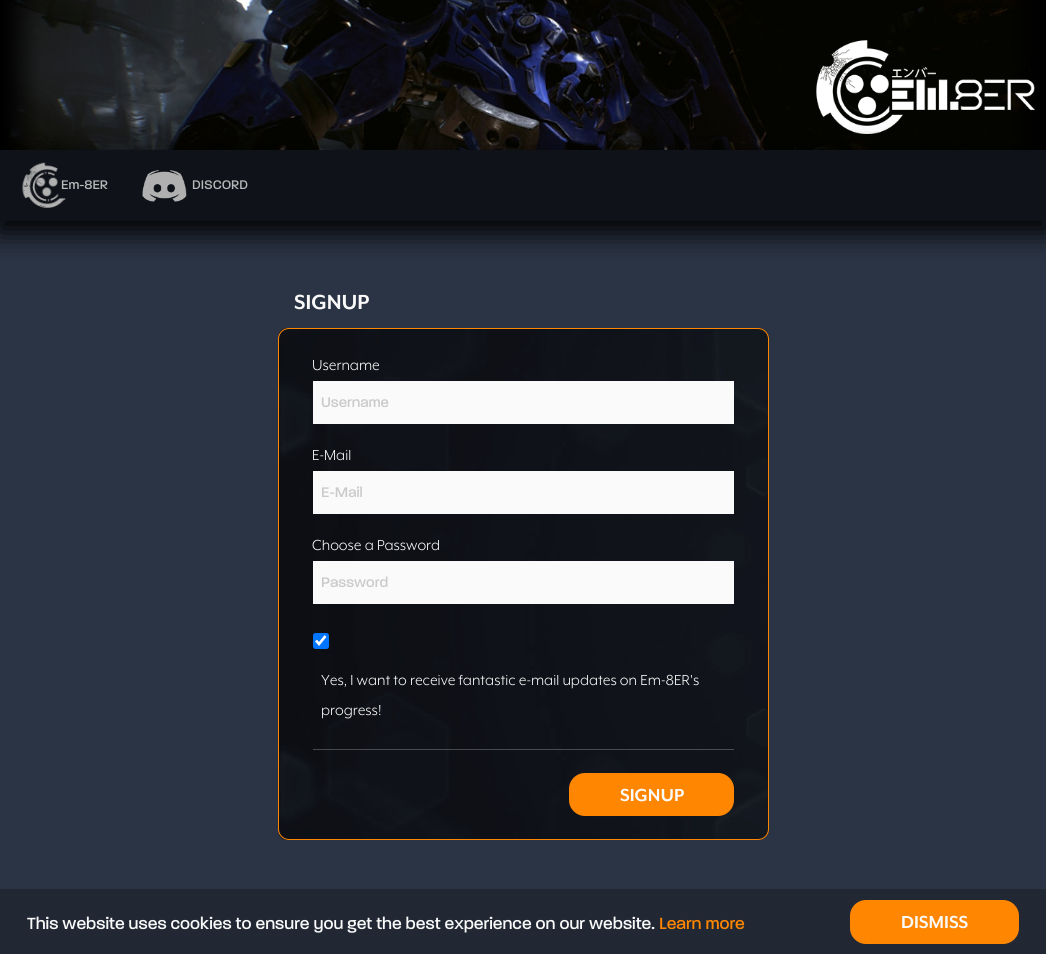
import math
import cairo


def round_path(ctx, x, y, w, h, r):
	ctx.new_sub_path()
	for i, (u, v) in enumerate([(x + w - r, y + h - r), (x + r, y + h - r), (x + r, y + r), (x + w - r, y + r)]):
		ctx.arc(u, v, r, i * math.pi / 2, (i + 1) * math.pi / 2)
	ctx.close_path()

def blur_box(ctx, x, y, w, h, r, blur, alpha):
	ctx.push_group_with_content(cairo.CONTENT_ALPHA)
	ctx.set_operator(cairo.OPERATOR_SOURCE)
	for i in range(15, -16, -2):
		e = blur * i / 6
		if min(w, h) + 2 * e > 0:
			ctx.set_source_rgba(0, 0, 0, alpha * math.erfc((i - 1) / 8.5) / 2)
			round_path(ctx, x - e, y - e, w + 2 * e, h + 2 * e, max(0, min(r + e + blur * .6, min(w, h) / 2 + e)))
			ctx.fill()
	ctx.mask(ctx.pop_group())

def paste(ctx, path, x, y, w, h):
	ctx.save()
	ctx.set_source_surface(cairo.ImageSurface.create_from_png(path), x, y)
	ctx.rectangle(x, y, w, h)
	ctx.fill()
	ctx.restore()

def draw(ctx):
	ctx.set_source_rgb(0.169, 0.204, 0.267)
	ctx.paint()
	paste(ctx, 'media/1.png', 0, 0, 1046, 150)
	paste(ctx, 'media/2.png', 816, 40, 219, 94)
	ctx.set_source_rgb(0, 0, 0)
	blur_box(ctx, -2, 156, 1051, 77, 0, 13.5, 1)
	ctx.set_source_rgb(0.059, 0.071, 0.094)
	ctx.rectangle(0, 150, 1046, 71)
	ctx.fill()
	paste(ctx, 'media/3.png', 22, 162, 44, 46)
	ctx.select_font_face('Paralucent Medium')
	ctx.set_font_size(13.5)
	ctx.set_source_rgb(0.722, 0.725, 0.733)
	ctx.move_to(61, 189)
	ctx.show_text('Em-8ER')
	paste(ctx, 'media/4.png', 142, 170, 45, 32)
	ctx.move_to(192, 189)
	ctx.show_text('DISCORD')
	ctx.select_font_face('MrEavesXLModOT', cairo.FONT_SLANT_NORMAL, cairo.FONT_WEIGHT_BOLD)
	ctx.set_font_size(23.5)
	ctx.set_source_rgb(0.98, 0.98, 0.98)
	ctx.move_to(294, 309)
	ctx.show_text('SIGNUP')
	paste(ctx, 'media/5.png', 278, 328, 491, 512)
	round_path(ctx, 278.5, 328.5, 490, 511, 10.5)
	ctx.set_source_rgb(1, 0.525, 0)
	ctx.set_line_width(1)
	ctx.stroke()
	ctx.select_font_face('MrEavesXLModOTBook')
	ctx.set_font_size(16.7)
	ctx.set_source_rgb(0.98, 0.98, 0.98)
	ctx.move_to(312, 370)
	ctx.show_text('Username')
	ctx.rectangle(313, 381, 421, 43)
	ctx.fill()
	ctx.select_font_face('Paralucent Medium')
	ctx.set_font_size(15)
	ctx.set_source_rgb(0.792, 0.792, 0.792)
	ctx.move_to(321, 407)
	ctx.show_text('Username')
	ctx.select_font_face('MrEavesXLModOTBook')
	ctx.set_font_size(16.7)
	ctx.set_source_rgb(0.98, 0.98, 0.98)
	ctx.move_to(312, 460)
	ctx.show_text('E-Mail')
	ctx.rectangle(313, 471, 421, 43)
	ctx.fill()
	ctx.select_font_face('Paralucent Medium')
	ctx.set_font_size(15)
	ctx.set_source_rgb(0.792, 0.792, 0.792)
	ctx.move_to(321, 497)
	ctx.show_text('E-Mail')
	ctx.select_font_face('MrEavesXLModOTBook')
	ctx.set_font_size(16.7)
	ctx.set_source_rgb(0.98, 0.98, 0.98)
	ctx.move_to(312, 550)
	ctx.show_text('Choose a Password')
	ctx.rectangle(313, 561, 421, 43)
	ctx.fill()
	ctx.select_font_face('Paralucent Medium')
	ctx.set_font_size(15)
	ctx.set_source_rgb(0.792, 0.792, 0.792)
	ctx.move_to(321, 587)
	ctx.show_text('Password')
	ctx.set_source_rgb(0, 0.459, 1)
	round_path(ctx, 313, 633, 16, 16, 2.5)
	ctx.fill()
	ctx.new_path()
	ctx.move_to(316, 640.5)
	ctx.line_to(319, 644)
	ctx.line_to(325.5, 636)
	ctx.set_source_rgb(1, 1, 1)
	ctx.set_line_width(2.6)
	ctx.stroke()
	ctx.select_font_face('MrEavesXLModOTBook')
	ctx.set_font_size(16.7)
	ctx.set_source_rgb(0.98, 0.98, 0.98)
	ctx.move_to(321, 685)
	ctx.show_text('Yes, I want to receive fantastic e-mail updates on Em-8ER\'s')
	ctx.move_to(321, 715)
	ctx.show_text('progress!')
	ctx.set_source_rgba(0.98, 0.98, 0.98, 0.25)
	ctx.rectangle(313, 749, 421, 1)
	ctx.fill()
	ctx.set_source_rgb(1, 0.525, 0)
	round_path(ctx, 569, 773, 165, 43, 16)
	ctx.fill()
	ctx.select_font_face('MrEavesXLModOT', cairo.FONT_SLANT_NORMAL, cairo.FONT_WEIGHT_BOLD)
	ctx.set_font_size(20)
	ctx.set_source_rgb(0.98, 0.98, 0.98)
	ctx.move_to(620, 801)
	ctx.show_text('SIGNUP')
	ctx.set_source_rgb(0.129, 0.157, 0.204)
	ctx.rectangle(0, 889, 1046, 65)
	ctx.fill()
	ctx.select_font_face('Paralucent Medium')
	ctx.set_font_size(17.5)
	ctx.set_source_rgb(0.98, 0.98, 0.98)
	ctx.move_to(27, 929)
	ctx.show_text('This website uses cookies to ensure you get the best experience on our website.')
	ctx.set_source_rgb(1, 0.525, 0)
	ctx.move_to(659, 929)
	ctx.show_text('Learn more')
	round_path(ctx, 850, 900, 169, 44, 16)
	ctx.fill()
	ctx.select_font_face('MrEavesXLModOT', cairo.FONT_SLANT_NORMAL, cairo.FONT_WEIGHT_BOLD)
	ctx.set_font_size(20)
	ctx.set_source_rgb(0.98, 0.98, 0.98)
	ctx.move_to(901, 928)
	ctx.show_text('DISMISS')


surface = cairo.ImageSurface(cairo.FORMAT_RGB24, 1046, 954)
ctx = cairo.Context(surface)
options = cairo.FontOptions()
options.set_hint_metrics(cairo.HINT_METRICS_OFF)
options.set_hint_style(cairo.HINT_STYLE_NONE)
ctx.set_font_options(options)
ctx.set_miter_limit(4)
draw(ctx)
surface.write_to_png('image.png')
